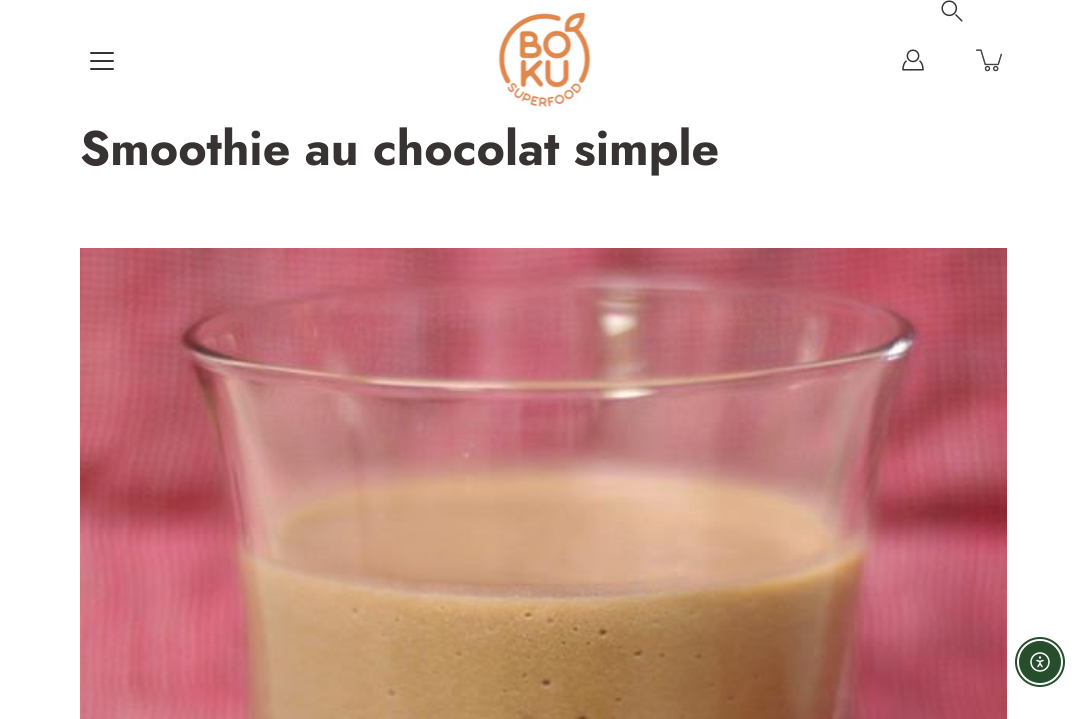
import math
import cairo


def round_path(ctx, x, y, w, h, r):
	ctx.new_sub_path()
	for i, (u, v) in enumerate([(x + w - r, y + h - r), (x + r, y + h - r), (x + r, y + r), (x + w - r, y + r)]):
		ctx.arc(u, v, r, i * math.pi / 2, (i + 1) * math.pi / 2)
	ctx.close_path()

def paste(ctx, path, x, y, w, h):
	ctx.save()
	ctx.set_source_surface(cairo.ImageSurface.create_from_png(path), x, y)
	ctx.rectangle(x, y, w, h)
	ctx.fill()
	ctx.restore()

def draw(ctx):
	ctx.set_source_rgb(1, 1, 1)
	ctx.paint()
	paste(ctx, 'media/1.png', 941, 0, 22, 22)
	ctx.set_source_rgb(0.22, 0.2, 0.2)
	round_path(ctx, 90, 60, 24, 2, 1)
	ctx.fill()
	round_path(ctx, 90, 52, 24, 2, 1)
	ctx.fill()
	round_path(ctx, 90, 68, 24, 2, 1)
	ctx.fill()
	paste(ctx, 'media/2.png', 902, 49, 22, 22)
	paste(ctx, 'media/3.png', 976, 49, 26, 23)
	paste(ctx, 'media/4.png', 495, 7, 96, 103)
	ctx.select_font_face('Jost', cairo.FONT_SLANT_NORMAL, cairo.FONT_WEIGHT_BOLD)
	ctx.set_font_size(48.25)
	ctx.move_to(80, 165)
	ctx.show_text('Smoothie au chocolat simple')
	paste(ctx, 'media/5.png', 80, 248, 927, 471)
	ctx.arc(1040, 662, 24, 0, 2 * math.pi)
	ctx.set_source_rgb(0.149, 0.306, 0.176)
	ctx.stroke()
	ctx.arc(1040, 662, 20.5, 0, 2 * math.pi)
	ctx.fill_preserve()
	ctx.set_line_width(1)
	ctx.stroke()
	paste(ctx, 'media/6.png', 1030, 652, 20, 20)


surface = cairo.ImageSurface(cairo.FORMAT_RGB24, 1087, 719)
ctx = cairo.Context(surface)
options = cairo.FontOptions()
options.set_hint_metrics(cairo.HINT_METRICS_OFF)
options.set_hint_style(cairo.HINT_STYLE_NONE)
ctx.set_font_options(options)
ctx.set_miter_limit(4)
draw(ctx)
surface.write_to_png('image.png')
